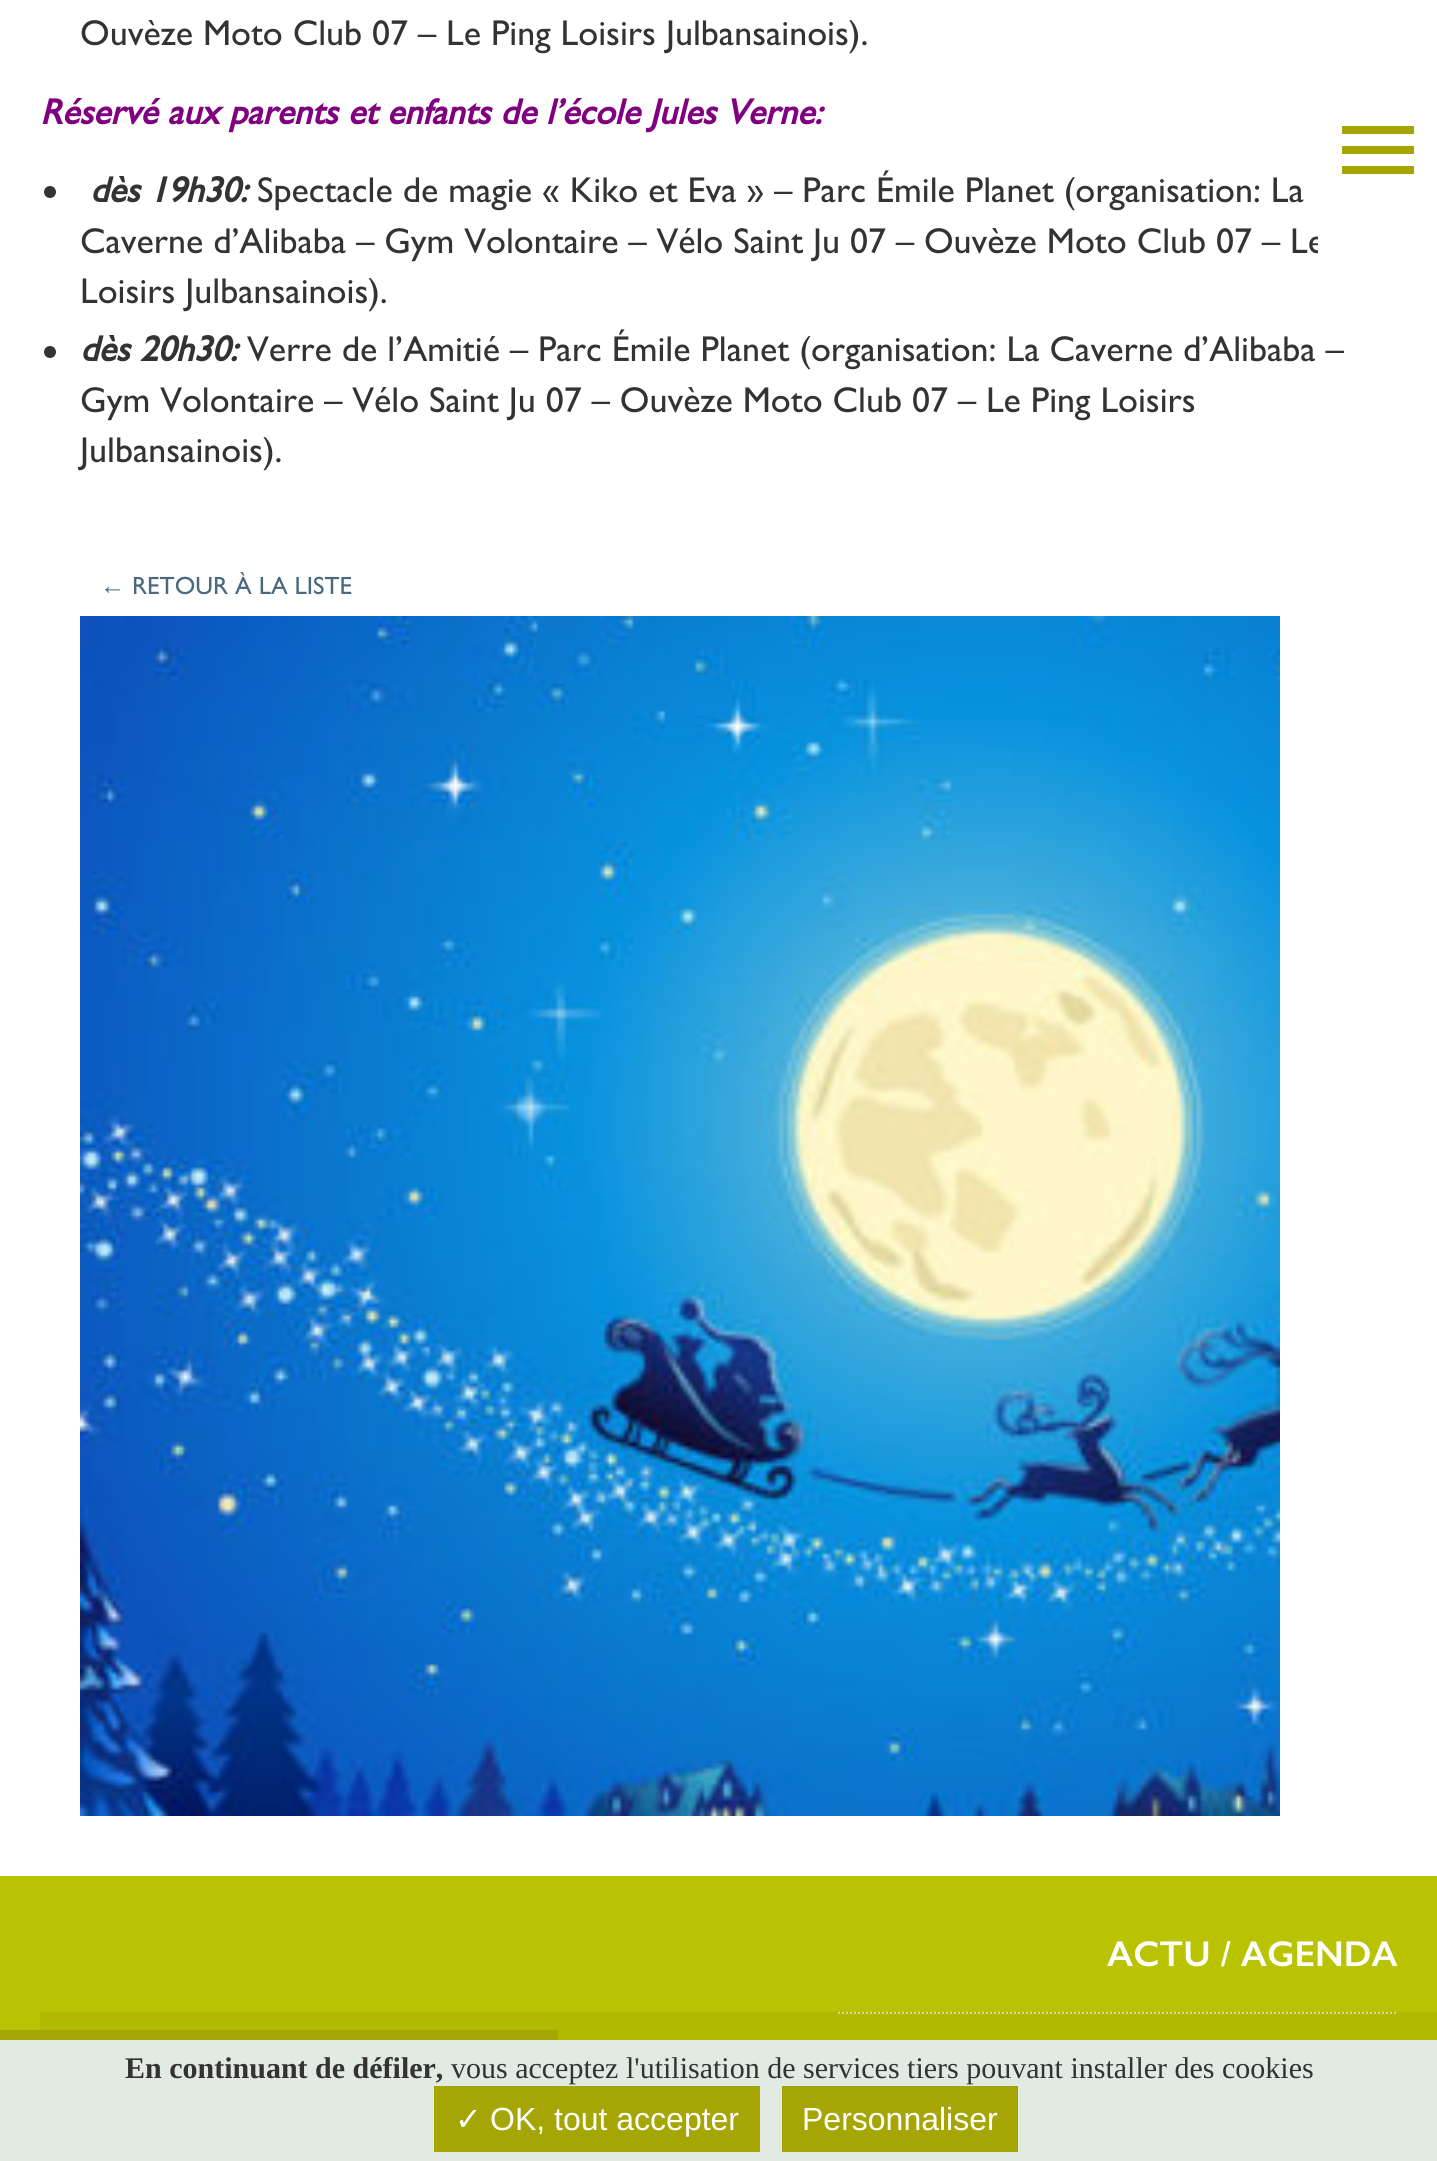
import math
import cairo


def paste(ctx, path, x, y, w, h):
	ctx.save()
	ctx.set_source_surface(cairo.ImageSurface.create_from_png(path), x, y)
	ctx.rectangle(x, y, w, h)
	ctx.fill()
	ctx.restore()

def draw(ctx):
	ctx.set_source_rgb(1, 1, 1)
	ctx.paint()
	ctx.select_font_face('Gill Sans')
	ctx.set_font_size(36)
	ctx.set_source_rgb(0.2, 0.2, 0.2)
	ctx.move_to(80, 45)
	ctx.show_text('Ouvèze Moto Club 07 – Le Ping Loisirs Julbansainois).')
	ctx.select_font_face('Gill Sans', cairo.FONT_SLANT_ITALIC, cairo.FONT_WEIGHT_BOLD)
	ctx.set_source_rgb(0.502, 0, 0.502)
	ctx.move_to(40, 124)
	ctx.show_text('Réservé aux parents et enfants de l’école Jules Verne:')
	ctx.set_source_rgb(0.2, 0.2, 0.2)
	ctx.new_path()
	ctx.arc(50, 192, 6, 0, 2 * math.pi)
	ctx.fill()
	ctx.move_to(90, 202)
	ctx.show_text('dès 19h30:')
	ctx.select_font_face('Gill Sans')
	for x, y, s in [
		(257, 202, 'Spectacle de magie « Kiko et Eva » – Parc Émile Planet (organisation: La'),
		(80, 253, 'Caverne d’Alibaba – Gym Volontaire – Vélo Saint Ju 07 – Ouvèze Moto Club 07 – Le'),
		(80, 303, 'Loisirs Julbansainois).'),
	]:
		ctx.move_to(x, y)
		ctx.show_text(s)
	ctx.new_path()
	ctx.arc(50, 352, 6, 0, 2 * math.pi)
	ctx.fill()
	ctx.select_font_face('Gill Sans', cairo.FONT_SLANT_ITALIC, cairo.FONT_WEIGHT_BOLD)
	ctx.move_to(80, 361)
	ctx.show_text('dès 20h30:')
	ctx.select_font_face('Gill Sans')
	for x, y, s in [
		(247, 361, 'Verre de l’Amitié – Parc Émile Planet (organisation: La Caverne d’Alibaba –'),
		(80, 412, 'Gym Volontaire – Vélo Saint Ju 07 – Ouvèze Moto Club 07 – Le Ping Loisirs'),
		(80, 462, 'Julbansainois).'),
	]:
		ctx.move_to(x, y)
		ctx.show_text(s)
	ctx.select_font_face('Liberation Sans')
	ctx.set_font_size(25)
	ctx.set_source_rgb(0.294, 0.412, 0.486)
	ctx.move_to(100, 594)
	ctx.show_text('←')
	ctx.select_font_face('Gill Sans')
	ctx.move_to(132, 594)
	ctx.show_text('RETOUR À LA LISTE')
	paste(ctx, 'media/1.png', 80, 616, 1200, 1200)
	ctx.set_source_rgb(0.729, 0.765, 0.008)
	ctx.rectangle(0, 1876, 1437, 164)
	ctx.fill()
	ctx.select_font_face('Gill Sans SemiBold')
	ctx.set_font_size(36)
	ctx.set_source_rgb(1, 1, 1)
	ctx.move_to(1107, 1966)
	ctx.show_text('ACTU / AGENDA')
	ctx.new_path()
	ctx.move_to(838, 2013)
	ctx.line_to(1398, 2013)
	ctx.set_source_rgb(0.89, 0.906, 0.604)
	ctx.set_dash([2, 2])
	ctx.stroke()
	ctx.set_source_rgba(0, 0, 0, 0.05)
	ctx.rectangle(40, 2012, 1397, 28)
	ctx.fill()
	ctx.set_source_rgb(1, 1, 1)
	ctx.rectangle(1318, 236, 6, 18)
	ctx.fill()
	ctx.set_source_rgb(0.647, 0.647, 0.016)
	ctx.rectangle(1342, 146, 72, 8)
	ctx.rectangle(1342, 126, 72, 8)
	ctx.rectangle(1342, 166, 72, 8)
	ctx.rectangle(0, 2030, 558, 10)
	ctx.fill()
	ctx.set_source_rgb(0.882, 0.918, 0.882)
	ctx.rectangle(0, 2040, 1437, 121)
	ctx.fill()
	ctx.select_font_face('Liberation Serif', cairo.FONT_SLANT_NORMAL, cairo.FONT_WEIGHT_BOLD)
	ctx.set_font_size(30)
	ctx.set_source_rgb(0.2, 0.2, 0.2)
	ctx.move_to(125, 2078)
	ctx.show_text('En continuant de défiler,')
	ctx.select_font_face('Liberation Serif')
	ctx.move_to(451, 2078)
	ctx.show_text('vous acceptez l\'utilisation de services tiers pouvant installer des cookies')
	ctx.set_source_rgb(0.647, 0.647, 0.016)
	ctx.rectangle(434, 2086, 326, 66)
	ctx.fill()
	ctx.select_font_face('DejaVu Sans')
	ctx.set_font_size(32)
	ctx.set_source_rgb(1, 1, 1)
	ctx.move_to(455, 2130)
	ctx.show_text('✓')
	ctx.select_font_face('Liberation Sans')
	ctx.move_to(490, 2130)
	ctx.show_text('OK, tout accepter')
	ctx.set_source_rgb(0.647, 0.647, 0.016)
	ctx.rectangle(782, 2086, 236, 66)
	ctx.fill()
	ctx.set_source_rgb(1, 1, 1)
	ctx.move_to(802, 2130)
	ctx.show_text('Personnaliser')


surface = cairo.ImageSurface(cairo.FORMAT_RGB24, 1437, 2161)
ctx = cairo.Context(surface)
options = cairo.FontOptions()
options.set_hint_metrics(cairo.HINT_METRICS_OFF)
options.set_hint_style(cairo.HINT_STYLE_NONE)
ctx.set_font_options(options)
ctx.set_miter_limit(4)
draw(ctx)
surface.write_to_png('image.png')
